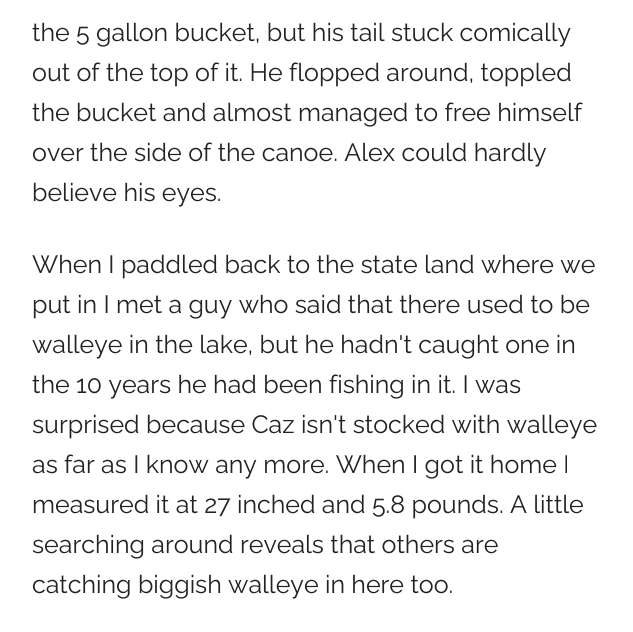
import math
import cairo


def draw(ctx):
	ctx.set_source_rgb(1, 1, 1)
	ctx.paint()
	ctx.select_font_face('Raleway')
	ctx.set_font_size(25)
	ctx.set_source_rgb(0.133, 0.133, 0.133)
	for x, y, s in [
		(32, 41, 'the 5 gallon bucket, but his tail stuck comically'),
		(32, 81, 'out of the top of it. He flopped around, toppled'),
		(32, 121, 'the bucket and almost managed to free himself'),
		(32, 161, 'over the side of the canoe. Alex could hardly'),
		(32, 201, 'believe his eyes.'),
		(32, 273, 'When I paddled back to the state land where we'),
		(32, 313, 'put in I met a guy who said that there used to be'),
		(32, 353, 'walleye in the lake, but he hadn\'t caught one in'),
		(32, 393, 'the 10 years he had been fishing in it. I was'),
		(32, 433, 'surprised because Caz isn\'t stocked with walleye'),
		(32, 473, 'as far as I know any more. When I got it home I'),
		(32, 513, 'measured it at 27 inched and 5.8 pounds. A little'),
		(32, 553, 'searching around reveals that others are'),
		(32, 593, 'catching biggish walleye in here too.'),
	]:
		ctx.move_to(x, y)
		ctx.show_text(s)


surface = cairo.ImageSurface(cairo.FORMAT_RGB24, 633, 632)
ctx = cairo.Context(surface)
options = cairo.FontOptions()
options.set_hint_metrics(cairo.HINT_METRICS_OFF)
options.set_hint_style(cairo.HINT_STYLE_NONE)
ctx.set_font_options(options)
ctx.set_miter_limit(4)
draw(ctx)
surface.write_to_png('image.png')
